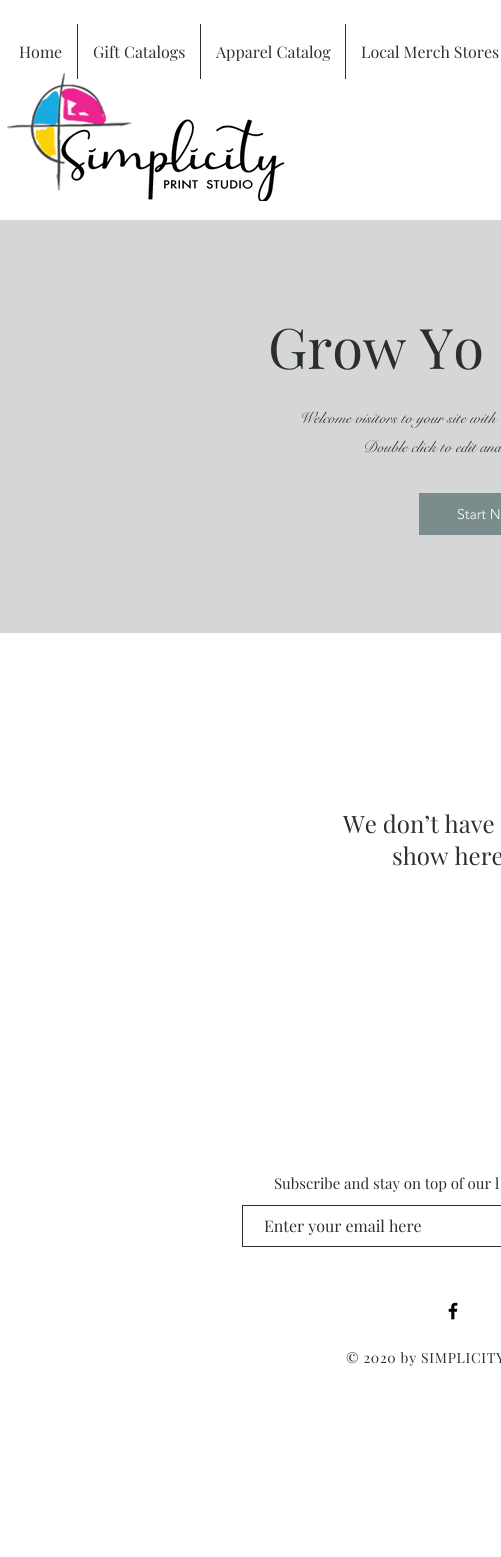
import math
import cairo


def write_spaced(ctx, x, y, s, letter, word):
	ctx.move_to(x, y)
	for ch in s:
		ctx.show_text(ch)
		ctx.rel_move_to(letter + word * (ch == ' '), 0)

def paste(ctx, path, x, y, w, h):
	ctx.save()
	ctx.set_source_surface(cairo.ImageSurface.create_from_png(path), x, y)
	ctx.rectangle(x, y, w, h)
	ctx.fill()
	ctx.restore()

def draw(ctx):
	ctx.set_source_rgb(1, 1, 1)
	ctx.paint()
	ctx.select_font_face('Playfair Display')
	ctx.set_font_size(16)
	ctx.set_source_rgb(0.184, 0.18, 0.18)
	ctx.move_to(19, 58)
	ctx.show_text('Home')
	paste(ctx, 'media/1.png', 7, 73, 278, 128)
	ctx.rectangle(77, 24, 1, 55)
	ctx.fill()
	ctx.move_to(93, 58)
	ctx.show_text('Gift Catalogs')
	ctx.rectangle(200, 24, 1, 55)
	ctx.fill()
	ctx.move_to(216, 58)
	ctx.show_text('Apparel Catalog')
	ctx.rectangle(345, 24, 1, 55)
	ctx.fill()
	ctx.move_to(361, 58)
	ctx.show_text('Local Merch Stores')
	ctx.set_source_rgb(0.839, 0.839, 0.839)
	ctx.rectangle(0, 220, 501, 413)
	ctx.fill()
	ctx.set_font_size(56)
	ctx.set_source_rgb(0.161, 0.184, 0.184)
	ctx.move_to(268, 369)
	ctx.show_text('Grow Yo')
	ctx.select_font_face('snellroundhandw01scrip')
	ctx.set_font_size(16)
	ctx.move_to(299, 423)
	ctx.show_text('Welcome visitors to your site with')
	ctx.move_to(363, 452)
	ctx.show_text('Double click to edit and')
	ctx.set_source_rgb(0.478, 0.549, 0.549)
	ctx.rectangle(419, 493, 82, 42)
	ctx.fill()
	ctx.select_font_face('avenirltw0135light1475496 Light')
	ctx.set_font_size(14)
	ctx.set_source_rgb(1, 1, 1)
	ctx.move_to(457, 519)
	ctx.show_text('Start N')
	ctx.select_font_face('Playfair Display')
	ctx.set_font_size(24)
	ctx.set_source_rgb(0.184, 0.18, 0.18)
	ctx.move_to(343, 833)
	ctx.show_text('We don’t have')
	ctx.move_to(392, 865)
	ctx.show_text('show here')
	ctx.set_font_size(15)
	ctx.set_source_rgb(0.161, 0.184, 0.184)
	ctx.move_to(274, 1189)
	ctx.show_text('Subscribe and stay on top of our l')
	ctx.rectangle(242.5, 1205.5, 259, 41)
	ctx.set_source_rgb(0.184, 0.18, 0.18)
	ctx.set_line_width(1)
	ctx.stroke()
	ctx.set_font_size(16)
	ctx.move_to(264, 1232)
	ctx.show_text('Enter your email here')
	paste(ctx, 'media/2.png', 448, 1302, 10, 18)
	ctx.set_font_size(14)
	ctx.set_source_rgb(0.161, 0.184, 0.184)
	write_spaced(ctx, 346, 1363, '© 2020 by SIMPLICITY', 0.7, 0)


surface = cairo.ImageSurface(cairo.FORMAT_RGB24, 501, 1557)
ctx = cairo.Context(surface)
options = cairo.FontOptions()
options.set_hint_metrics(cairo.HINT_METRICS_OFF)
options.set_hint_style(cairo.HINT_STYLE_NONE)
ctx.set_font_options(options)
ctx.set_miter_limit(4)
draw(ctx)
surface.write_to_png('image.png')
